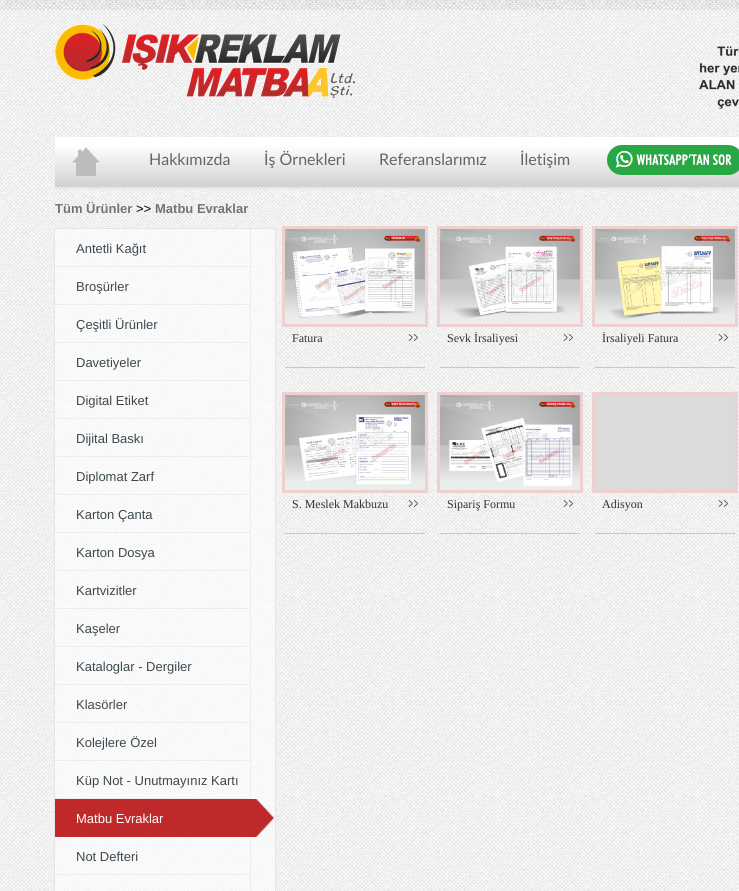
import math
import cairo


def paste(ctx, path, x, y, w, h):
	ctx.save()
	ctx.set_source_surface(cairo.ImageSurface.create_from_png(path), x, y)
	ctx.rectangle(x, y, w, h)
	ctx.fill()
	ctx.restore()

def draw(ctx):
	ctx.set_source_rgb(1, 1, 1)
	ctx.paint()
	paste(ctx, 'media/1.png', 0, 0, 739, 891)
	paste(ctx, 'media/2.png', 55, 23, 300, 75)
	paste(ctx, 'media/3.png', 699, 46, 40, 63)
	paste(ctx, 'media/4.png', 55, 137, 684, 50)
	ctx.set_source_rgb(0.902, 0.902, 0.902)
	ctx.rectangle(55, 187, 684, 2)
	ctx.fill()
	paste(ctx, 'media/5.png', 72, 147, 28, 29)
	ctx.select_font_face('Lato')
	ctx.set_font_size(16)
	ctx.set_source_rgb(0.4, 0.4, 0.4)
	for x, y, s in [
		(149, 165, 'Hakkımızda'),
		(264, 165, 'İş Örnekleri'),
		(379, 165, 'Referanslarımız'),
		(520, 165, 'İletişim'),
	]:
		ctx.move_to(x, y)
		ctx.show_text(s)
	paste(ctx, 'media/6.png', 607, 145, 132, 30)
	ctx.select_font_face('Liberation Sans', cairo.FONT_SLANT_NORMAL, cairo.FONT_WEIGHT_BOLD)
	ctx.set_font_size(13)
	ctx.set_source_rgb(0.459, 0.447, 0.451)
	ctx.move_to(55, 213)
	ctx.show_text('Tüm Ürünler')
	ctx.select_font_face('Liberation Sans')
	ctx.set_source_rgb(0, 0, 0)
	ctx.move_to(136, 213)
	ctx.show_text('>>')
	ctx.select_font_face('Liberation Sans', cairo.FONT_SLANT_NORMAL, cairo.FONT_WEIGHT_BOLD)
	ctx.set_source_rgb(0.459, 0.447, 0.451)
	ctx.move_to(155, 213)
	ctx.show_text('Matbu Evraklar')
	ctx.set_source_rgba(1, 1, 1, 0.6)
	ctx.rectangle(55, 229, 220, 662)
	ctx.fill()
	ctx.set_source_rgb(0.922, 0.922, 0.922)
	ctx.rectangle(55, 266, 195, 1)
	ctx.rectangle(250, 229, 1, 570)
	ctx.rectangle(55, 304, 195, 1)
	ctx.rectangle(55, 342, 195, 1)
	ctx.rectangle(55, 380, 195, 1)
	ctx.rectangle(55, 418, 195, 1)
	ctx.rectangle(55, 456, 195, 1)
	ctx.rectangle(55, 494, 195, 1)
	ctx.rectangle(55, 532, 195, 1)
	ctx.rectangle(55, 570, 195, 1)
	ctx.rectangle(55, 608, 195, 1)
	ctx.rectangle(55, 646, 195, 1)
	ctx.rectangle(55, 684, 195, 1)
	ctx.rectangle(55, 722, 195, 1)
	ctx.rectangle(55, 760, 195, 1)
	ctx.rectangle(55, 798, 195, 1)
	ctx.fill()
	paste(ctx, 'media/7.png', 55, 799, 219, 38)
	ctx.rectangle(55, 874, 195, 1)
	ctx.fill()
	ctx.rectangle(250, 837, 1, 54)
	ctx.fill()
	ctx.rectangle(54.5, 228.5, 221, 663)
	ctx.set_source_rgb(0.898, 0.898, 0.898)
	ctx.set_line_width(1)
	ctx.stroke()
	ctx.select_font_face('Liberation Sans')
	ctx.set_source_rgb(0.239, 0.282, 0.306)
	for x, y, s in [
		(76, 253, 'Antetli Kağıt'),
		(76, 291, 'Broşürler'),
		(76, 329, 'Çeşitli Ürünler'),
		(76, 367, 'Davetiyeler'),
		(76, 405, 'Digital Etiket'),
		(76, 443, 'Dijital Baskı'),
		(76, 481, 'Diplomat Zarf'),
		(76, 519, 'Karton Çanta'),
		(76, 557, 'Karton Dosya'),
		(76, 595, 'Kartvizitler'),
		(76, 633, 'Kaşeler'),
		(76, 671, 'Kataloglar - Dergiler'),
		(76, 709, 'Klasörler'),
		(76, 747, 'Kolejlere Özel'),
		(76, 785, 'Küp Not - Unutmayınız Kartı'),
	]:
		ctx.move_to(x, y)
		ctx.show_text(s)
	ctx.set_source_rgb(1, 1, 1)
	ctx.move_to(76, 823)
	ctx.show_text('Matbu Evraklar')
	ctx.set_source_rgb(0.239, 0.282, 0.306)
	ctx.move_to(76, 861)
	ctx.show_text('Not Defteri')
	ctx.set_source_rgb(0.78, 0.78, 0.78)
	ctx.rectangle(285, 367, 140, 1)
	ctx.fill()
	paste(ctx, 'media/8.png', 285, 229, 140, 95)
	ctx.rectangle(283.5, 227.5, 143, 98)
	ctx.set_source_rgb(0.929, 0.82, 0.82)
	ctx.set_line_width(3)
	ctx.stroke()
	paste(ctx, 'media/9.png', 408, 334, 10, 7)
	ctx.select_font_face('Liberation Serif')
	ctx.set_font_size(12)
	ctx.set_source_rgb(0.2, 0.2, 0.2)
	ctx.move_to(292, 342)
	ctx.show_text('Fatura')
	ctx.set_source_rgb(0.78, 0.78, 0.78)
	ctx.rectangle(440, 367, 140, 1)
	ctx.fill()
	paste(ctx, 'media/10.png', 440, 229, 140, 95)
	ctx.rectangle(438.5, 227.5, 143, 98)
	ctx.set_source_rgb(0.929, 0.82, 0.82)
	ctx.stroke()
	paste(ctx, 'media/11.png', 563, 334, 10, 7)
	ctx.set_source_rgb(0.2, 0.2, 0.2)
	ctx.move_to(447, 342)
	ctx.show_text('Sevk İrsaliyesi')
	ctx.set_source_rgb(0.78, 0.78, 0.78)
	ctx.rectangle(595, 367, 140, 1)
	ctx.fill()
	paste(ctx, 'media/12.png', 595, 229, 140, 95)
	ctx.rectangle(593.5, 227.5, 143, 98)
	ctx.set_source_rgb(0.929, 0.82, 0.82)
	ctx.stroke()
	paste(ctx, 'media/13.png', 718, 334, 10, 7)
	ctx.set_source_rgb(0.2, 0.2, 0.2)
	ctx.move_to(602, 342)
	ctx.show_text('İrsaliyeli Fatura')
	ctx.set_source_rgb(0.78, 0.78, 0.78)
	ctx.rectangle(285, 533, 140, 1)
	ctx.fill()
	paste(ctx, 'media/14.png', 285, 395, 140, 95)
	ctx.rectangle(283.5, 393.5, 143, 98)
	ctx.set_source_rgb(0.929, 0.82, 0.82)
	ctx.stroke()
	paste(ctx, 'media/15.png', 408, 500, 10, 7)
	ctx.set_source_rgb(0.2, 0.2, 0.2)
	ctx.move_to(292, 508)
	ctx.show_text('S. Meslek Makbuzu')
	ctx.set_source_rgb(0.78, 0.78, 0.78)
	ctx.rectangle(440, 533, 140, 1)
	ctx.fill()
	paste(ctx, 'media/16.png', 440, 395, 140, 95)
	ctx.rectangle(438.5, 393.5, 143, 98)
	ctx.set_source_rgb(0.929, 0.82, 0.82)
	ctx.stroke()
	paste(ctx, 'media/17.png', 563, 500, 10, 7)
	ctx.set_source_rgb(0.2, 0.2, 0.2)
	ctx.move_to(447, 508)
	ctx.show_text('Sipariş Formu')
	ctx.set_source_rgb(0.78, 0.78, 0.78)
	ctx.rectangle(595, 533, 140, 1)
	ctx.fill()
	ctx.set_source_rgb(0.863, 0.859, 0.859)
	ctx.rectangle(593.5, 393.5, 143, 98)
	ctx.fill_preserve()
	ctx.set_source_rgb(0.929, 0.82, 0.82)
	ctx.stroke()
	paste(ctx, 'media/18.png', 718, 500, 10, 7)
	ctx.set_source_rgb(0.2, 0.2, 0.2)
	ctx.move_to(602, 508)
	ctx.show_text('Adisyon')


surface = cairo.ImageSurface(cairo.FORMAT_RGB24, 739, 891)
ctx = cairo.Context(surface)
options = cairo.FontOptions()
options.set_hint_metrics(cairo.HINT_METRICS_OFF)
options.set_hint_style(cairo.HINT_STYLE_NONE)
ctx.set_font_options(options)
ctx.set_miter_limit(4)
draw(ctx)
surface.write_to_png('image.png')
